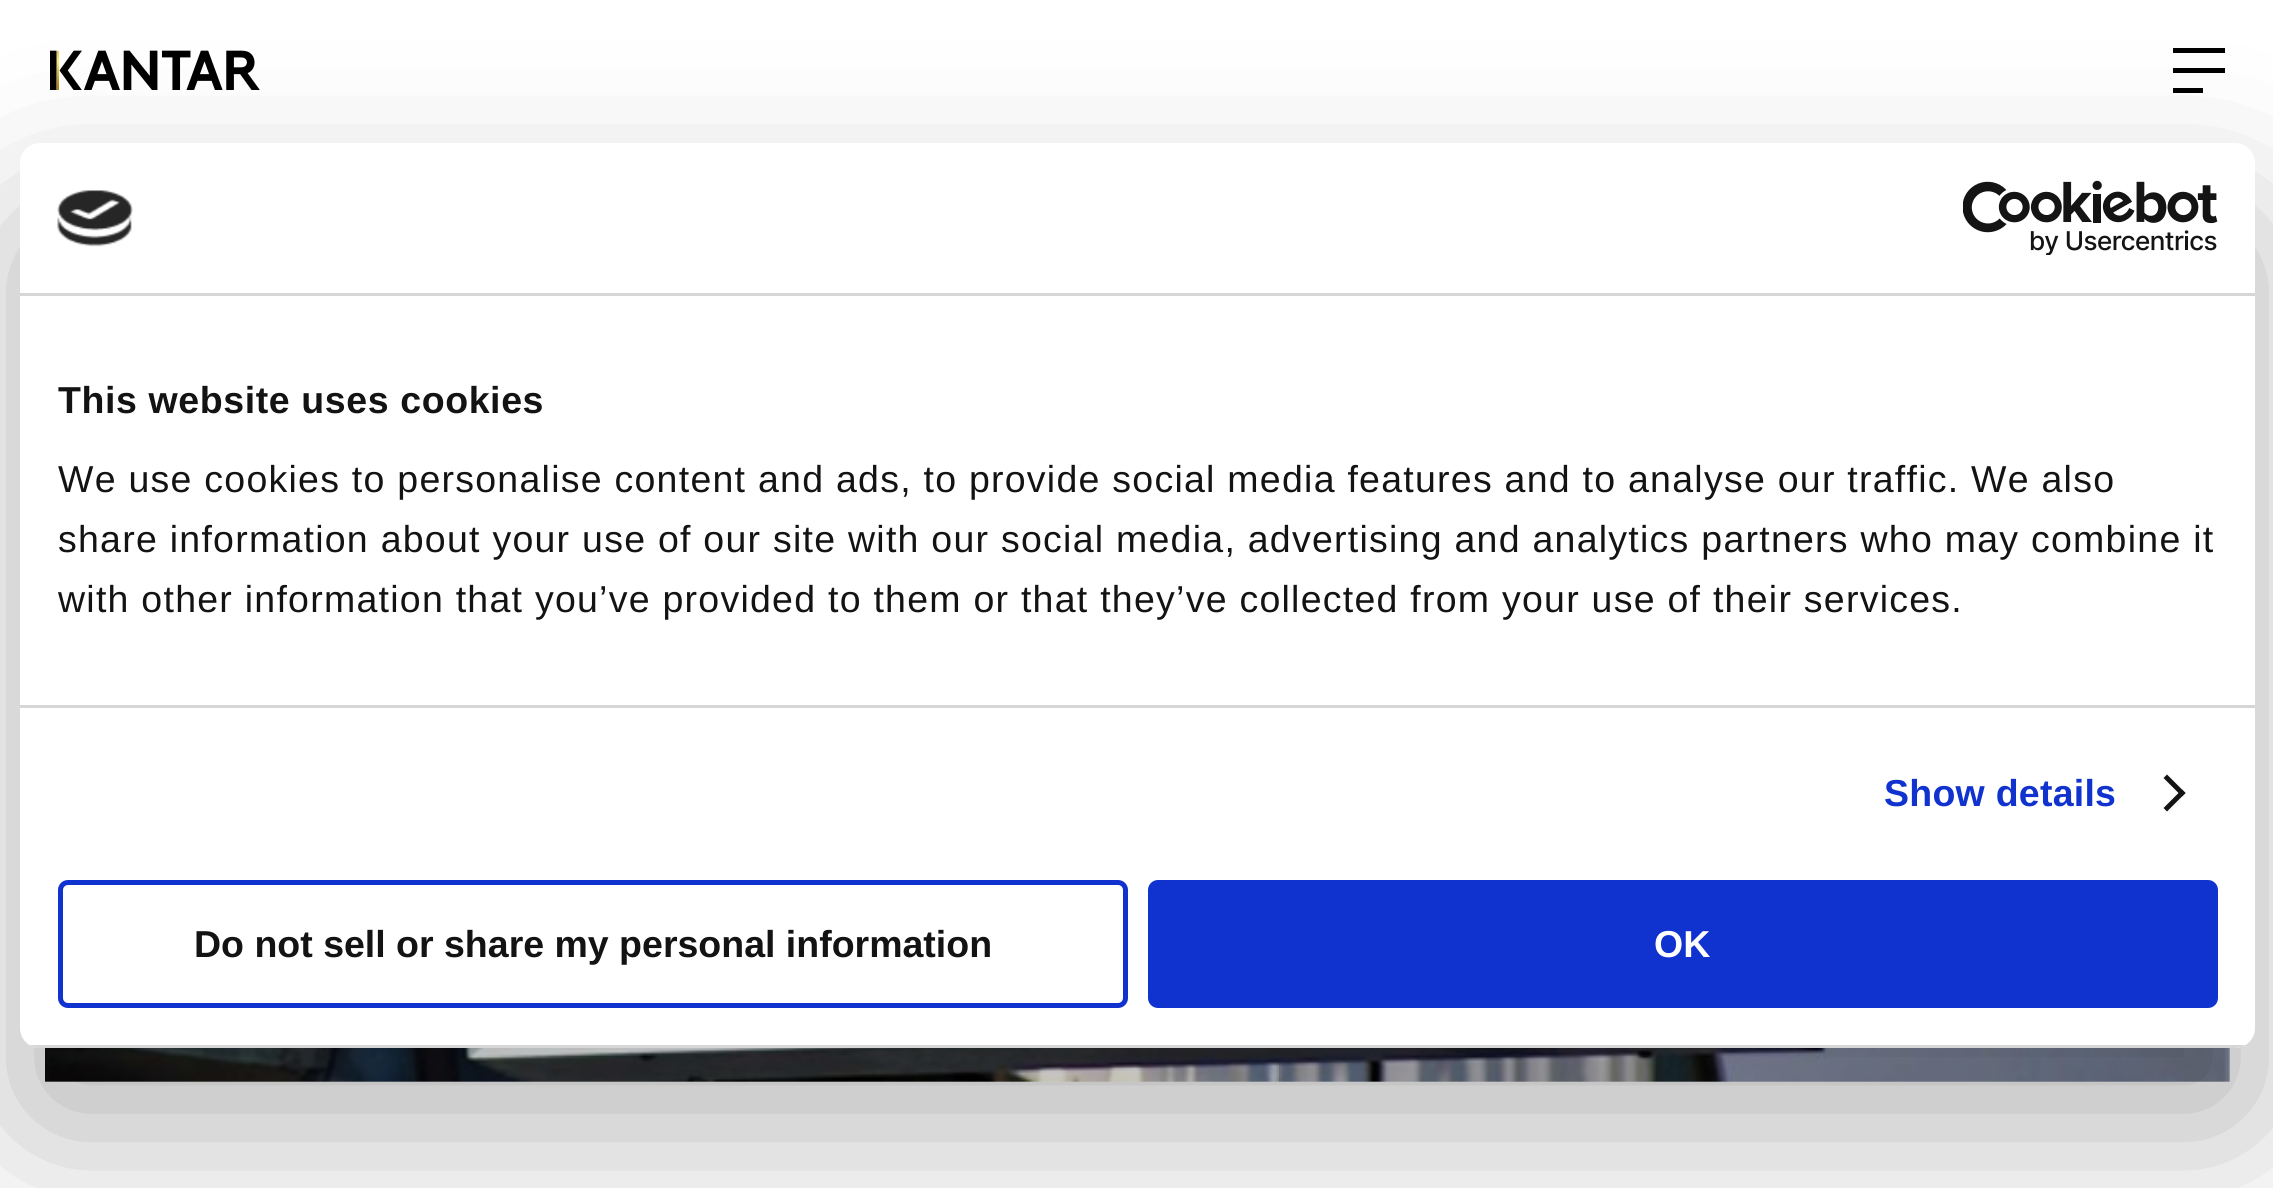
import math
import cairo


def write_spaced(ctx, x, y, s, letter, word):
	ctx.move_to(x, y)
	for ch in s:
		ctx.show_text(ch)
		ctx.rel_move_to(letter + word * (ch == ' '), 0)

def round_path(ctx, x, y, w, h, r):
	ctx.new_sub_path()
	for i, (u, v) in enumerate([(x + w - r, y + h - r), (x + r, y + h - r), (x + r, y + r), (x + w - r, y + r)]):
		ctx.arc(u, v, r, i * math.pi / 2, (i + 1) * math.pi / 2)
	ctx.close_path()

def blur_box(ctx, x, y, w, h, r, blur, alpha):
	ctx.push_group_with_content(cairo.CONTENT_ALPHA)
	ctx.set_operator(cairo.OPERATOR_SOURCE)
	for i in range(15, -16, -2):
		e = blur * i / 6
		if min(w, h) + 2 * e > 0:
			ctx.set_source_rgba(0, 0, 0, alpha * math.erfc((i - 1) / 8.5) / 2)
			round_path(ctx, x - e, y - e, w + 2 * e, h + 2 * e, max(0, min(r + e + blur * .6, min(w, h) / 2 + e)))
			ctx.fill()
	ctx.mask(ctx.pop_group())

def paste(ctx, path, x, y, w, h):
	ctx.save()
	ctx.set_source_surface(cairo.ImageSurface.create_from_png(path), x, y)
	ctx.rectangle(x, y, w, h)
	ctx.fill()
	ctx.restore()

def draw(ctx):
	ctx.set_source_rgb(1, 1, 1)
	ctx.paint()
	paste(ctx, 'media/1.png', 50, 50, 210, 40)
	ctx.set_source_rgb(0, 0, 0)
	ctx.rectangle(2173, 68, 52, 5)
	ctx.rectangle(2173, 48, 52, 5)
	ctx.rectangle(2173, 88, 30, 5)
	ctx.fill()
	paste(ctx, 'media/4.png', 45, 1048, 2185, 34)
	ctx.set_source_rgb(0, 0, 0)
	blur_box(ctx, 20, 223, 2235, 905, 20, 85, 0.3)
	ctx.set_source_rgb(1, 1, 1)
	round_path(ctx, 20, 143, 2235, 905, 20)
	ctx.fill()
	ctx.set_source_rgb(0.839, 0.839, 0.839)
	ctx.rectangle(20, 293, 2235, 3)
	ctx.fill()
	paste(ctx, 'media/2.png', 57, 190, 76, 57)
	paste(ctx, 'media/3.png', 1963, 180, 255, 75)
	ctx.rectangle(20, 705, 2235, 3)
	ctx.fill()
	ctx.select_font_face('Liberation Sans', cairo.FONT_SLANT_NORMAL, cairo.FONT_WEIGHT_BOLD)
	ctx.set_font_size(37.5)
	ctx.set_source_rgb(0.078, 0.078, 0.078)
	write_spaced(ctx, 58, 413, 'This website uses cookies', 0.6, 0)
	ctx.select_font_face('Liberation Sans')
	for x, y, s in [
		(58, 492, 'We use cookies to personalise content and ads, to provide social media features and to analyse our traffic. We also'),
		(58, 552, 'share information about your use of our site with our social media, advertising and analytics partners who may combine it'),
		(58, 612, 'with other information that you’ve provided to them or that they’ve collected from your use of their services.'),
	]:
		write_spaced(ctx, x, y, s, 1.25, 0)
	ctx.select_font_face('Liberation Sans', cairo.FONT_SLANT_NORMAL, cairo.FONT_WEIGHT_BOLD)
	ctx.set_source_rgb(0.063, 0.196, 0.812)
	write_spaced(ctx, 1884, 806, 'Show details', 0.25, 0)
	ctx.set_source_rgb(0.078, 0.078, 0.078)
	ctx.new_path()
	ctx.move_to(2167, 774.5)
	ctx.line_to(2185.5, 793)
	ctx.line_to(2182, 796.5)
	ctx.line_to(2163.5, 778)
	ctx.close_path()
	ctx.fill()
	ctx.new_path()
	ctx.move_to(2182, 789.5)
	ctx.line_to(2185.5, 793)
	ctx.line_to(2167, 811.5)
	ctx.line_to(2163.5, 808)
	ctx.close_path()
	ctx.fill()
	ctx.save()
	round_path(ctx, 20, 143, 2235, 905, 20)
	ctx.clip()
	ctx.set_source_rgb(0.839, 0.839, 0.839)
	ctx.rectangle(29, 1045, 2217, 3)
	ctx.fill()
	ctx.restore()
	round_path(ctx, 60.5, 882.5, 1065, 123, 7.5)
	ctx.set_source_rgb(0.063, 0.196, 0.812)
	ctx.set_line_width(5)
	ctx.stroke()
	ctx.set_source_rgb(0.078, 0.078, 0.078)
	ctx.move_to(194, 957)
	ctx.show_text('Do not sell or share my personal information')
	ctx.set_source_rgb(0.063, 0.196, 0.812)
	round_path(ctx, 1150.5, 882.5, 1065, 123, 7.5)
	ctx.fill_preserve()
	ctx.stroke()
	ctx.set_source_rgb(1, 1, 1)
	ctx.move_to(1654, 957)
	ctx.show_text('OK')


surface = cairo.ImageSurface(cairo.FORMAT_RGB24, 2273, 1188)
ctx = cairo.Context(surface)
options = cairo.FontOptions()
options.set_hint_metrics(cairo.HINT_METRICS_OFF)
options.set_hint_style(cairo.HINT_STYLE_NONE)
ctx.set_font_options(options)
ctx.set_miter_limit(4)
draw(ctx)
surface.write_to_png('image.png')
